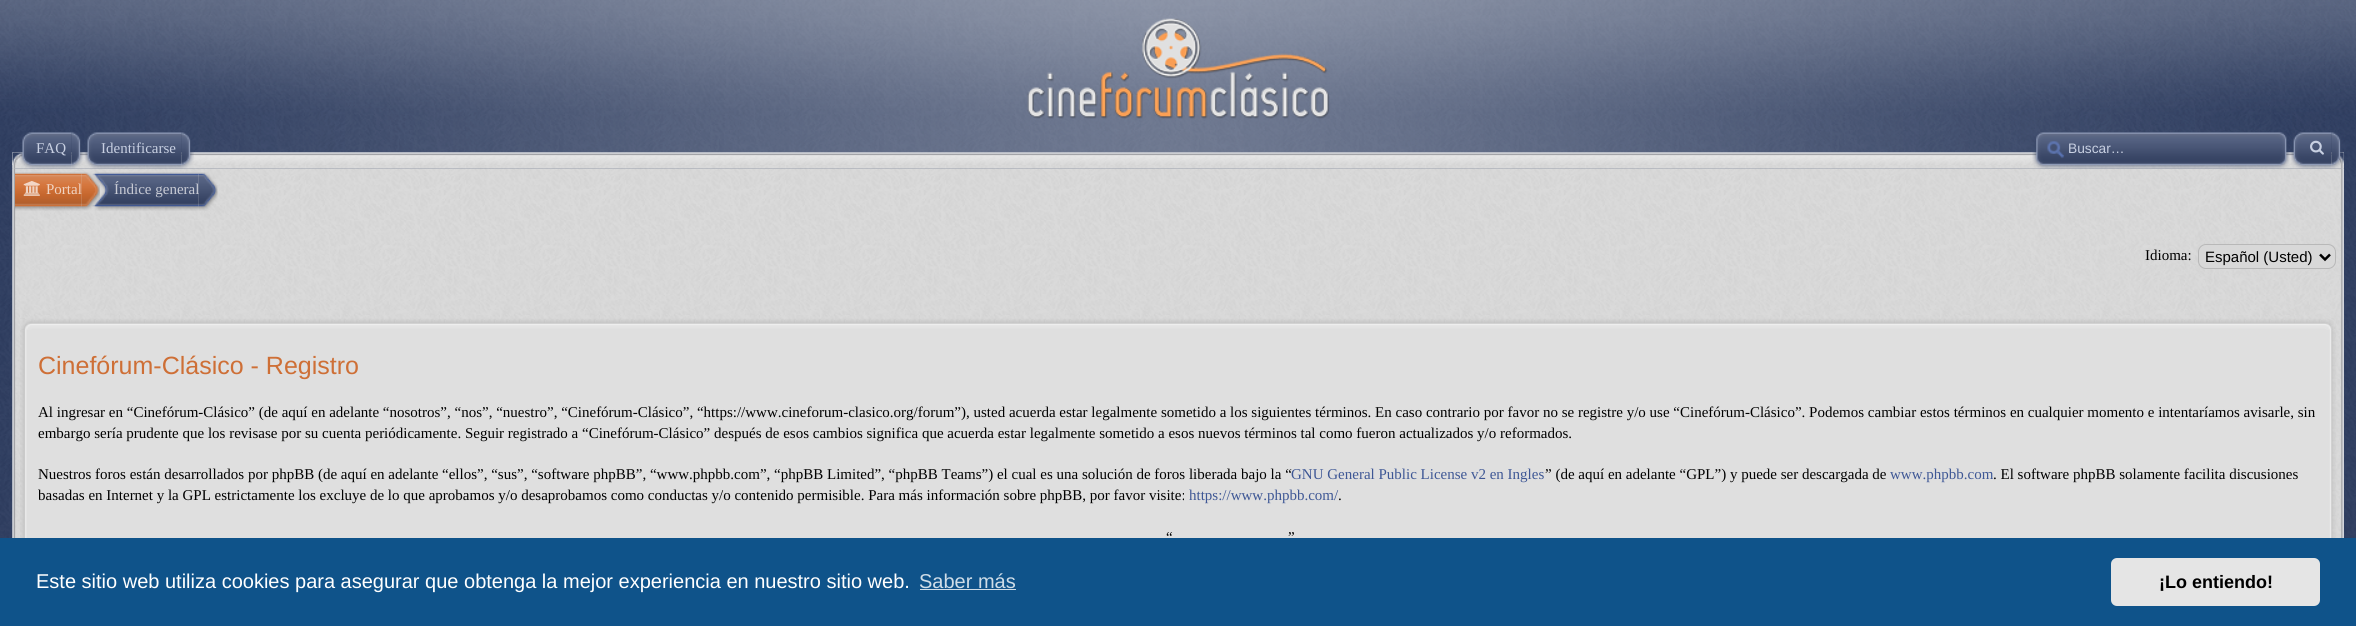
import math
import cairo


def round_path(ctx, x, y, w, h, r):
	ctx.new_sub_path()
	for i, (u, v) in enumerate([(x + w - r, y + h - r), (x + r, y + h - r), (x + r, y + r), (x + w - r, y + r)]):
		ctx.arc(u, v, r, i * math.pi / 2, (i + 1) * math.pi / 2)
	ctx.close_path()

def paste(ctx, path, x, y, w, h):
	ctx.save()
	ctx.set_source_surface(cairo.ImageSurface.create_from_png(path), x, y)
	ctx.rectangle(x, y, w, h)
	ctx.fill()
	ctx.restore()

def draw(ctx):
	ctx.set_source_rgb(1, 1, 1)
	ctx.paint()
	paste(ctx, 'media/1.png', 0, 0, 2356, 538)
	paste(ctx, 'media/2.png', 0, 0, 2356, 153)
	paste(ctx, 'media/3.png', 1027, 18, 303, 101)
	paste(ctx, 'media/4.png', 12, 152, 2332, 17)
	paste(ctx, 'media/13.png', 12, 168, 2332, 370)
	paste(ctx, 'media/5.png', 19, 132, 53, 37)
	paste(ctx, 'media/6.png', 71, 132, 13, 37)
	ctx.select_font_face('Liberation Serif')
	ctx.set_font_size(15)
	ctx.set_source_rgb(0.784, 0.816, 0.886)
	ctx.move_to(36, 153)
	ctx.show_text('FAQ')
	paste(ctx, 'media/7.png', 83, 132, 99, 37)
	paste(ctx, 'media/8.png', 181, 132, 13, 37)
	ctx.move_to(101, 153)
	ctx.show_text('Identificarse')
	paste(ctx, 'media/9.png', 2032, 132, 258, 37)
	ctx.select_font_face('Liberation Sans')
	ctx.set_font_size(13.75)
	ctx.move_to(2068, 153)
	ctx.show_text('Buscar…')
	paste(ctx, 'media/10.png', 2290, 132, 42, 37)
	paste(ctx, 'media/11.png', 2331, 132, 13, 37)
	paste(ctx, 'media/12.png', 2310, 140, 14, 15)
	paste(ctx, 'media/14.png', 81, 172, 19, 39)
	paste(ctx, 'media/15.png', 15, 172, 67, 39)
	paste(ctx, 'media/16.png', 23, 181, 17, 15)
	ctx.select_font_face('Liberation Serif')
	ctx.set_font_size(15)
	ctx.set_source_rgb(0.941, 0.831, 0.765)
	ctx.move_to(46, 194)
	ctx.show_text('Portal')
	paste(ctx, 'media/17.png', 198, 172, 20, 39)
	paste(ctx, 'media/18.png', 92, 172, 107, 39)
	ctx.set_source_rgb(0.784, 0.796, 0.835)
	ctx.move_to(114, 194)
	ctx.show_text('Índice general')
	ctx.set_source_rgb(0, 0, 0)
	ctx.move_to(2145, 260)
	ctx.show_text('Idioma:')
	ctx.set_source_rgb(0.847, 0.847, 0.847)
	round_path(ctx, 2198.5, 244.5, 137, 24, 7.5)
	ctx.fill_preserve()
	ctx.set_source_rgb(0.722, 0.722, 0.722)
	ctx.set_line_width(1)
	ctx.stroke()
	ctx.new_path()
	ctx.move_to(2320, 254.5)
	ctx.line_to(2325, 259.5)
	ctx.line_to(2330, 254.5)
	ctx.set_source_rgb(0, 0, 0)
	ctx.set_line_width(2.5)
	ctx.stroke()
	ctx.select_font_face('Liberation Sans')
	ctx.move_to(2205, 262)
	ctx.show_text('Español (Usted)')
	ctx.set_source_rgb(0.875, 0.875, 0.875)
	ctx.rectangle(27, 328, 2302, 210)
	ctx.fill()
	paste(ctx, 'media/19.png', 20, 318, 2317, 220)
	ctx.set_font_size(25)
	ctx.set_source_rgb(0.808, 0.435, 0.212)
	ctx.move_to(38, 374)
	ctx.show_text('Cinefórum-Clásico - Registro')
	ctx.select_font_face('Liberation Serif')
	ctx.set_font_size(15)
	ctx.set_source_rgb(0, 0, 0)
	for x, y, s in [
		(38, 417, 'Al ingresar en “Cinefórum-Clásico” (de aquí en adelante “nosotros”, “nos”, “nuestro”, “Cinefórum-Clásico”, “https://www.cineforum-clasico.org/forum”), usted acuerda estar legalmente sometido a los siguientes términos. En caso contrario por favor no se registre y/o use “Cinefórum-Clásico”. Podemos cambiar estos términos en cualquier momento e intentaríamos avisarle, sin'),
		(38, 438, 'embargo sería prudente que los revisase por su cuenta periódicamente. Seguir registrado a “Cinefórum-Clásico” después de esos cambios significa que acuerda estar legalmente sometido a esos nuevos términos tal como fueron actualizados y/o reformados.'),
		(38, 479, 'Nuestros foros están desarrollados por phpBB (de aquí en adelante “ellos”, “sus”, “software phpBB”, “www.phpbb.com”, “phpBB Limited”, “phpBB Teams”) el cual es una solución de foros liberada bajo la “'),
	]:
		ctx.move_to(x, y)
		ctx.show_text(s)
	ctx.set_source_rgb(0.243, 0.341, 0.584)
	ctx.move_to(1291, 479)
	ctx.show_text('GNU General Public License v2 en Ingles')
	ctx.set_source_rgb(0, 0, 0)
	ctx.move_to(1545, 479)
	ctx.show_text('” (de aquí en adelante “GPL”) y puede ser descargada de')
	ctx.set_source_rgb(0.243, 0.341, 0.584)
	ctx.move_to(1890, 479)
	ctx.show_text('www.phpbb.com')
	ctx.set_source_rgb(0, 0, 0)
	ctx.move_to(1993, 479)
	ctx.show_text('. El software phpBB solamente facilita discusiones')
	ctx.move_to(38, 500)
	ctx.show_text('basadas en Internet y la GPL estrictamente los excluye de lo que aprobamos y/o desaprobamos como conductas y/o contenido permisible. Para más información sobre phpBB, por favor visite:')
	ctx.set_source_rgb(0.243, 0.341, 0.584)
	ctx.move_to(1189, 500)
	ctx.show_text('https://www.phpbb.com/')
	ctx.set_source_rgb(0, 0, 0)
	for x, y, s in [
		(1338, 500, '.'),
		(1166, 542, '“'),
		(1288, 542, '”'),
	]:
		ctx.move_to(x, y)
		ctx.show_text(s)
	ctx.set_source_rgb(0.059, 0.325, 0.541)
	ctx.rectangle(0, 538, 2356, 88)
	ctx.fill()
	ctx.select_font_face('Liberation Sans')
	ctx.set_font_size(20)
	ctx.set_source_rgb(1, 1, 1)
	ctx.move_to(36, 588)
	ctx.show_text('Este sitio web utiliza cookies para asegurar que obtenga la mejor experiencia en nuestro sitio web.')
	ctx.set_source_rgb(0.812, 0.867, 0.91)
	ctx.move_to(919, 588)
	ctx.show_text('Saber más')
	ctx.rectangle(920, 589, 96, 1)
	ctx.fill()
	ctx.set_source_rgb(0.898, 0.898, 0.898)
	round_path(ctx, 2111, 558, 209, 48, 6)
	ctx.fill()
	ctx.select_font_face('Liberation Sans', cairo.FONT_SLANT_NORMAL, cairo.FONT_WEIGHT_BOLD)
	ctx.set_font_size(18)
	ctx.set_source_rgb(0, 0, 0)
	ctx.move_to(2159, 588)
	ctx.show_text('¡Lo entiendo!')


surface = cairo.ImageSurface(cairo.FORMAT_RGB24, 2356, 626)
ctx = cairo.Context(surface)
options = cairo.FontOptions()
options.set_hint_metrics(cairo.HINT_METRICS_OFF)
options.set_hint_style(cairo.HINT_STYLE_NONE)
ctx.set_font_options(options)
ctx.set_miter_limit(4)
draw(ctx)
surface.write_to_png('image.png')
